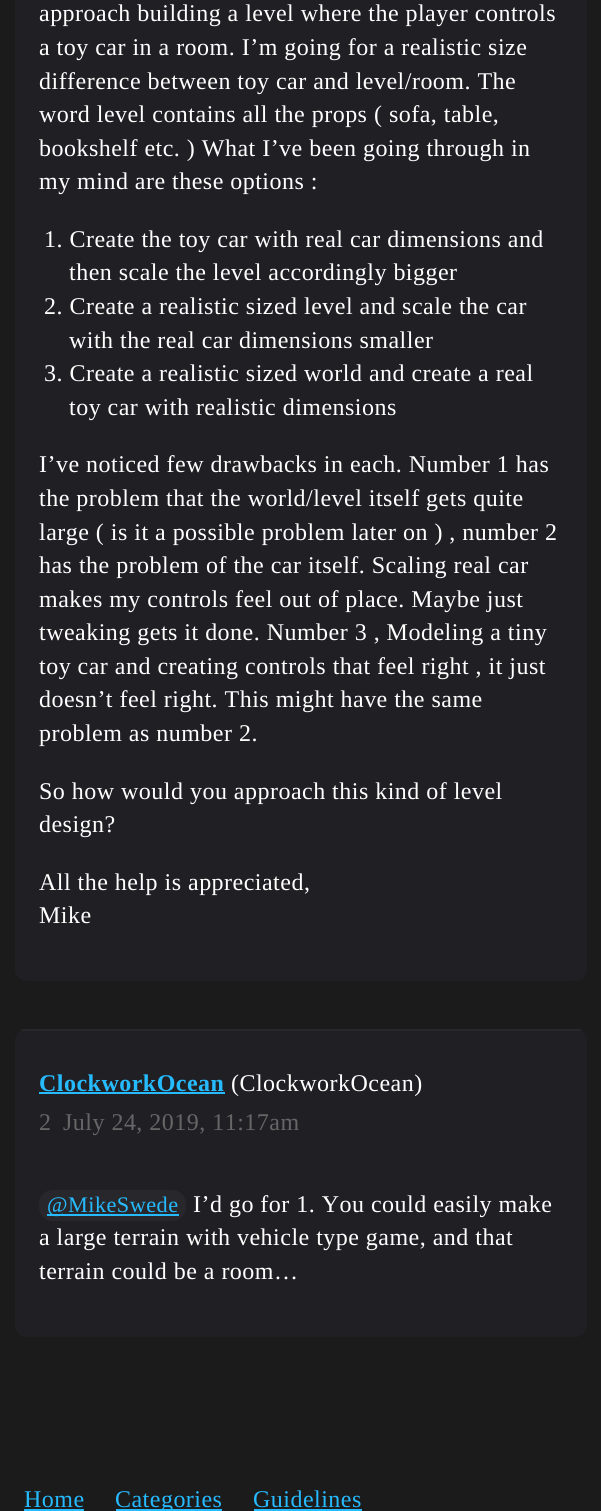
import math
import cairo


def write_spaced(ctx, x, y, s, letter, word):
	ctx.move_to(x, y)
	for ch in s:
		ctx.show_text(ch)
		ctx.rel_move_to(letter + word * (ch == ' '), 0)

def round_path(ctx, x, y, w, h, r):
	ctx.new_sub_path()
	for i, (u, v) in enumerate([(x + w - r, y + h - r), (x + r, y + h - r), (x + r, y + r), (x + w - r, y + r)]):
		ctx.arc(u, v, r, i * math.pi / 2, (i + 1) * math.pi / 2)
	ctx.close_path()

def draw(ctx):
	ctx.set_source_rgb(0.106, 0.106, 0.106)
	ctx.paint()
	ctx.set_source_rgb(0.125, 0.125, 0.141)
	round_path(ctx, 15, -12, 572, 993, 12)
	ctx.fill()
	ctx.select_font_face('Liberation Serif')
	ctx.set_font_size(24)
	ctx.set_source_rgb(1, 1, 1)
	for x, y, s in [
		(39, 21, 'approach building a level where the player controls'),
		(39, 55, 'a toy car in a room. I’m going for a realistic size'),
		(39, 89, 'difference between toy car and level/room. The'),
		(39, 122, 'word level contains all the props ( sofa, table,'),
		(39, 156, 'bookshelf etc. ) What I’ve been going through in'),
		(39, 189, 'my mind are these options :'),
		(44, 247, '1. Create the toy car with real car dimensions and'),
		(69, 280, 'then scale the level accordingly bigger'),
		(44, 314, '2. Create a realistic sized level and scale the car'),
		(69, 348, 'with the real car dimensions smaller'),
		(44, 381, '3. Create a realistic sized world and create a real'),
		(69, 415, 'toy car with realistic dimensions'),
		(39, 472, 'I’ve noticed few drawbacks in each. Number 1 has'),
		(39, 506, 'the problem that the world/level itself gets quite'),
		(39, 540, 'large ( is it a possible problem later on ) , number 2'),
		(39, 573, 'has the problem of the car itself. Scaling real car'),
		(39, 607, 'makes my controls feel out of place. Maybe just'),
		(39, 640, 'tweaking gets it done. Number 3 , Modeling a tiny'),
		(39, 674, 'toy car and creating controls that feel right , it just'),
		(39, 707, 'doesn’t feel right. This might have the same'),
		(39, 741, 'problem as number 2.'),
		(39, 799, 'So how would you approach this kind of level'),
		(39, 832, 'design?'),
		(39, 890, 'All the help is appreciated,'),
		(39, 923, 'Mike'),
	]:
		write_spaced(ctx, x, y, s, 0.48, 0)
	ctx.set_source_rgb(0.125, 0.125, 0.141)
	round_path(ctx, 15, 1029, 572, 308, 12)
	ctx.fill()
	ctx.set_source_rgb(0.157, 0.157, 0.173)
	ctx.rectangle(21, 1029, 560, 2)
	ctx.fill()
	ctx.select_font_face('Liberation Serif', cairo.FONT_SLANT_NORMAL, cairo.FONT_WEIGHT_BOLD)
	ctx.set_source_rgb(0.149, 0.733, 1)
	write_spaced(ctx, 39, 1091, 'ClockworkOcean', 0.48, 0)
	ctx.rectangle(39, 1092, 186, 2)
	ctx.fill()
	ctx.select_font_face('Liberation Serif')
	ctx.set_source_rgb(1, 1, 1)
	write_spaced(ctx, 231, 1091, '(ClockworkOcean)', 0.48, 0)
	ctx.set_source_rgb(0.4, 0.4, 0.4)
	write_spaced(ctx, 39, 1130, '2', 0.48, 0)
	write_spaced(ctx, 63, 1130, 'July 24, 2019, 11:17am', 0.48, 0)
	ctx.set_source_rgb(0.157, 0.157, 0.173)
	round_path(ctx, 39, 1190, 147, 31, 14)
	ctx.fill()
	ctx.set_source_rgb(0.149, 0.733, 1)
	ctx.rectangle(47, 1214, 132, 2)
	ctx.fill()
	ctx.set_font_size(22.25)
	write_spaced(ctx, 47, 1212, '@MikeSwede', 0.48, 0)
	ctx.set_font_size(24)
	ctx.set_source_rgb(1, 1, 1)
	for x, y, s in [
		(193, 1212, 'I’d go for 1. You could easily make'),
		(39, 1245, 'a large terrain with vehicle type game, and that'),
		(39, 1279, 'terrain could be a room…'),
	]:
		write_spaced(ctx, x, y, s, 0.48, 0)
	ctx.set_source_rgb(0.149, 0.733, 1)
	write_spaced(ctx, 24, 1507, 'Home', 0.48, 0)
	ctx.rectangle(24, 1509, 60, 2)
	ctx.fill()
	ctx.rectangle(116, 1509, 106, 2)
	ctx.fill()
	write_spaced(ctx, 115, 1507, 'Categories', 0.48, 0)
	write_spaced(ctx, 253, 1507, 'Guidelines', 0.48, 0)
	ctx.rectangle(254, 1509, 108, 2)
	ctx.fill()


surface = cairo.ImageSurface(cairo.FORMAT_RGB24, 601, 1511)
ctx = cairo.Context(surface)
options = cairo.FontOptions()
options.set_hint_metrics(cairo.HINT_METRICS_OFF)
options.set_hint_style(cairo.HINT_STYLE_NONE)
ctx.set_font_options(options)
ctx.set_miter_limit(4)
draw(ctx)
surface.write_to_png('image.png')
